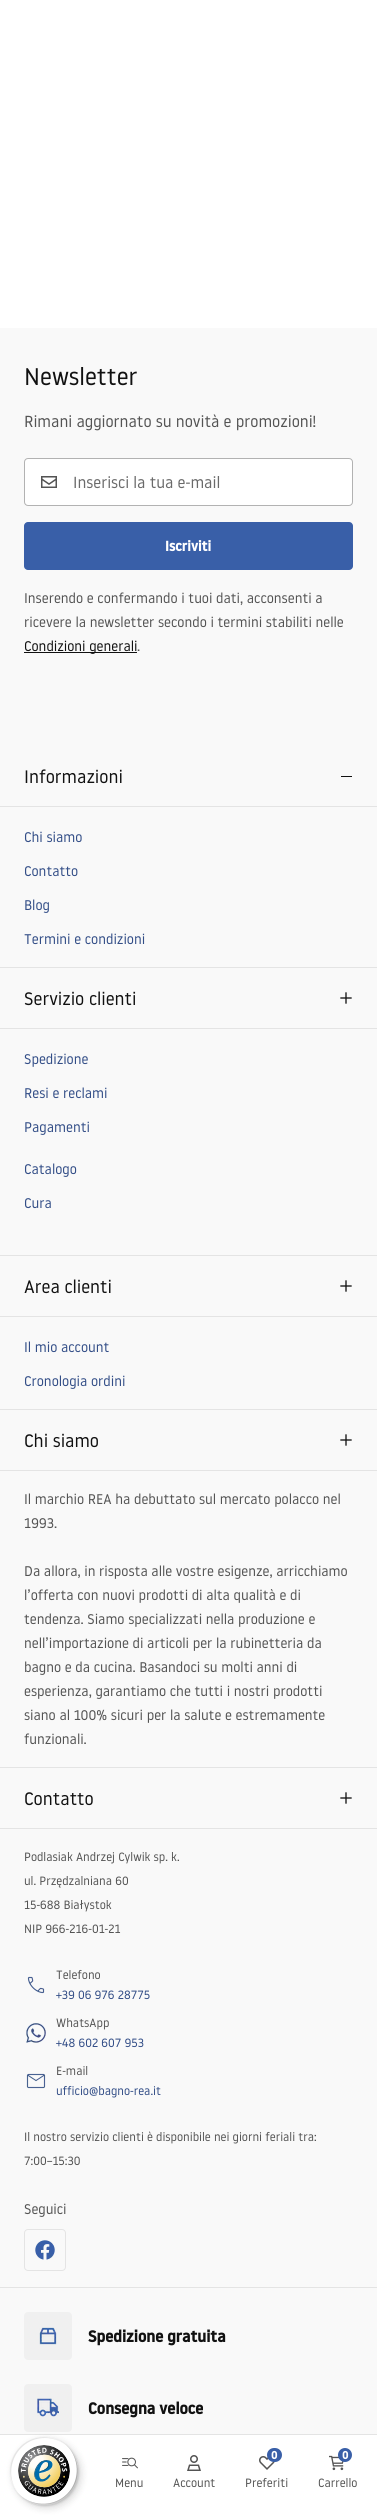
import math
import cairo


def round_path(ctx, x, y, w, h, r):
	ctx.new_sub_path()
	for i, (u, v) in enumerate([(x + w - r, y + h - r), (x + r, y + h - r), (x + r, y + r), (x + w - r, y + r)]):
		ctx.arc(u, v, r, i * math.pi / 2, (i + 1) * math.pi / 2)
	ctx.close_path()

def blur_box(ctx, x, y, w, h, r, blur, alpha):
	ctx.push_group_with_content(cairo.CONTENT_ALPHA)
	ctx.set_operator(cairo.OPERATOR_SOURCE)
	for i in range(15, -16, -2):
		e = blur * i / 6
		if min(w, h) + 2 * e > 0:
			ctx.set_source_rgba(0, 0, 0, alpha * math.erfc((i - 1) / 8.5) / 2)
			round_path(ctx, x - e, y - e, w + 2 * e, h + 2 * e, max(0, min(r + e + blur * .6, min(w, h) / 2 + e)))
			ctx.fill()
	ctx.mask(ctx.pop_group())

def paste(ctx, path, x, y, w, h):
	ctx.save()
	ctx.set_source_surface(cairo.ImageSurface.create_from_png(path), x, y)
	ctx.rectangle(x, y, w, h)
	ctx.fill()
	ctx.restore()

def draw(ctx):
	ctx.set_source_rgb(1, 1, 1)
	ctx.paint()
	ctx.set_source_rgb(0.973, 0.973, 0.973)
	ctx.rectangle(0, 328, 377, 2106)
	ctx.fill()
	ctx.select_font_face('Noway')
	ctx.set_font_size(24)
	ctx.set_source_rgb(0.067, 0.067, 0.067)
	ctx.move_to(24, 385)
	ctx.show_text('Newsletter')
	ctx.set_font_size(16)
	ctx.set_source_rgb(0.329, 0.329, 0.329)
	ctx.move_to(24, 427)
	ctx.show_text('Rimani aggiornato su novità e promozioni!')
	ctx.set_source_rgb(1, 1, 1)
	round_path(ctx, 24.5, 458.5, 328, 47, 3.5)
	ctx.fill_preserve()
	ctx.set_source_rgb(0.698, 0.698, 0.698)
	ctx.set_line_width(1)
	ctx.stroke()
	paste(ctx, 'media/1.png', 41, 476, 16, 12)
	ctx.set_source_rgb(0.416, 0.416, 0.416)
	ctx.move_to(73, 488)
	ctx.show_text('Inserisci la tua e-mail')
	ctx.set_source_rgb(0.224, 0.373, 0.659)
	round_path(ctx, 24, 522, 329, 48, 4)
	ctx.fill()
	ctx.select_font_face('Noway', cairo.FONT_SLANT_NORMAL, cairo.FONT_WEIGHT_BOLD)
	ctx.set_font_size(14)
	ctx.set_source_rgb(1, 1, 1)
	ctx.move_to(165, 551)
	ctx.show_text('Iscriviti')
	ctx.select_font_face('Noway')
	ctx.set_source_rgb(0.329, 0.329, 0.329)
	ctx.move_to(24, 603)
	ctx.show_text('Inserendo e confermando i tuoi dati, acconsenti a')
	ctx.move_to(24, 627)
	ctx.show_text('ricevere la newsletter secondo i termini stabiliti nelle')
	ctx.set_source_rgb(0.067, 0.067, 0.067)
	ctx.rectangle(24, 652, 113, 1)
	ctx.fill()
	ctx.move_to(24, 651)
	ctx.show_text('Condizioni generali')
	ctx.set_source_rgb(0.329, 0.329, 0.329)
	ctx.move_to(137, 651)
	ctx.show_text('.')
	ctx.set_font_size(18)
	ctx.set_source_rgb(0.067, 0.067, 0.067)
	ctx.move_to(24, 783)
	ctx.show_text('Informazioni')
	ctx.rectangle(341, 776, 11, 1)
	ctx.fill()
	ctx.set_source_rgb(0.894, 0.894, 0.894)
	ctx.rectangle(0, 806, 377, 1)
	ctx.fill()
	ctx.set_font_size(14)
	ctx.set_source_rgb(0.2, 0.306, 0.529)
	for x, y, s in [
		(24, 842, 'Chi siamo'),
		(24, 876, 'Contatto'),
		(24, 910, 'Blog'),
		(24, 944, 'Termini e condizioni'),
	]:
		ctx.move_to(x, y)
		ctx.show_text(s)
	ctx.set_source_rgb(0.894, 0.894, 0.894)
	ctx.rectangle(0, 967, 377, 1)
	ctx.fill()
	ctx.set_font_size(18)
	ctx.set_source_rgb(0.067, 0.067, 0.067)
	ctx.move_to(24, 1005)
	ctx.show_text('Servizio clienti')
	paste(ctx, 'media/2.png', 340, 992, 12, 12)
	ctx.set_source_rgb(0.894, 0.894, 0.894)
	ctx.rectangle(0, 1028, 377, 1)
	ctx.fill()
	ctx.set_font_size(14)
	ctx.set_source_rgb(0.2, 0.306, 0.529)
	for x, y, s in [
		(24, 1064, 'Spedizione'),
		(24, 1098, 'Resi e reclami'),
		(24, 1132, 'Pagamenti'),
		(24, 1174, 'Catalogo'),
		(24, 1208, 'Cura'),
	]:
		ctx.move_to(x, y)
		ctx.show_text(s)
	ctx.set_source_rgb(0.894, 0.894, 0.894)
	ctx.rectangle(0, 1255, 377, 1)
	ctx.fill()
	ctx.set_font_size(18)
	ctx.set_source_rgb(0.067, 0.067, 0.067)
	ctx.move_to(24, 1293)
	ctx.show_text('Area clienti')
	paste(ctx, 'media/2.png', 340, 1280, 12, 12)
	ctx.set_source_rgb(0.894, 0.894, 0.894)
	ctx.rectangle(0, 1316, 377, 1)
	ctx.fill()
	ctx.set_font_size(14)
	ctx.set_source_rgb(0.2, 0.306, 0.529)
	ctx.move_to(24, 1352)
	ctx.show_text('Il mio account')
	ctx.move_to(24, 1386)
	ctx.show_text('Cronologia ordini')
	ctx.set_source_rgb(0.894, 0.894, 0.894)
	ctx.rectangle(0, 1409, 377, 1)
	ctx.fill()
	ctx.set_font_size(18)
	ctx.set_source_rgb(0.067, 0.067, 0.067)
	ctx.move_to(24, 1447)
	ctx.show_text('Chi siamo')
	paste(ctx, 'media/2.png', 340, 1434, 12, 12)
	ctx.set_source_rgb(0.894, 0.894, 0.894)
	ctx.rectangle(0, 1470, 377, 1)
	ctx.fill()
	ctx.set_font_size(14)
	ctx.set_source_rgb(0.329, 0.329, 0.329)
	for x, y, s in [
		(24, 1504, 'Il marchio REA ha debuttato sul mercato polacco nel'),
		(24, 1528, '1993.'),
		(24, 1576, 'Da allora, in risposta alle vostre esigenze, arricchiamo'),
		(24, 1600, 'l’offerta con nuovi prodotti di alta qualità e di'),
		(24, 1624, 'tendenza. Siamo specializzati nella produzione e'),
		(24, 1648, 'nell’importazione di articoli per la rubinetteria da'),
		(24, 1672, 'bagno e da cucina. Basandoci su molti anni di'),
		(24, 1696, 'esperienza, garantiamo che tutti i nostri prodotti'),
		(24, 1720, 'siano al 100% sicuri per la salute e estremamente'),
		(24, 1744, 'funzionali.'),
	]:
		ctx.move_to(x, y)
		ctx.show_text(s)
	ctx.set_source_rgb(0.894, 0.894, 0.894)
	ctx.rectangle(0, 1767, 377, 1)
	ctx.fill()
	ctx.set_font_size(18)
	ctx.set_source_rgb(0.067, 0.067, 0.067)
	ctx.move_to(24, 1805)
	ctx.show_text('Contatto')
	paste(ctx, 'media/2.png', 340, 1792, 12, 12)
	ctx.set_source_rgb(0.894, 0.894, 0.894)
	ctx.rectangle(0, 1828, 377, 1)
	ctx.fill()
	ctx.set_font_size(12)
	ctx.set_source_rgb(0.329, 0.329, 0.329)
	for x, y, s in [
		(24, 1861, 'Podlasiak Andrzej Cylwik sp. k.'),
		(24, 1885, 'ul. Przędzalniana 60'),
		(24, 1909, '15-688 Białystok'),
		(24, 1933, 'NIP 966-216-01-21'),
	]:
		ctx.move_to(x, y)
		ctx.show_text(s)
	paste(ctx, 'media/3.png', 27, 1976, 18, 18)
	ctx.move_to(56, 1979)
	ctx.show_text('Telefono')
	ctx.set_source_rgb(0.2, 0.306, 0.529)
	ctx.move_to(56, 1999)
	ctx.show_text('+39 06 976 28775')
	paste(ctx, 'media/4.png', 26, 2023, 20, 20)
	ctx.set_source_rgb(0.329, 0.329, 0.329)
	ctx.move_to(56, 2027)
	ctx.show_text('WhatsApp')
	ctx.set_source_rgb(0.2, 0.306, 0.529)
	ctx.move_to(56, 2047)
	ctx.show_text('+48 602 607 953')
	paste(ctx, 'media/5.png', 26, 2073, 20, 16)
	ctx.set_source_rgb(0.329, 0.329, 0.329)
	ctx.move_to(56, 2075)
	ctx.show_text('E-mail')
	ctx.set_source_rgb(0.2, 0.306, 0.529)
	ctx.move_to(56, 2095)
	ctx.show_text('ufficio@bagno-rea.it')
	ctx.set_source_rgb(0.329, 0.329, 0.329)
	ctx.move_to(24, 2141)
	ctx.show_text('Il nostro servizio clienti è disponibile nei giorni feriali tra:')
	ctx.move_to(24, 2165)
	ctx.show_text('7:00–15:30')
	ctx.set_font_size(14)
	ctx.move_to(24, 2214)
	ctx.show_text('Seguici')
	round_path(ctx, 24.5, 2229.5, 41, 41, 3.5)
	ctx.set_source_rgb(0.894, 0.894, 0.894)
	ctx.stroke()
	paste(ctx, 'media/6.png', 35, 2240, 20, 20)
	ctx.rectangle(0, 2287, 377, 1)
	ctx.fill()
	ctx.set_source_rgb(0.941, 0.941, 0.941)
	round_path(ctx, 24, 2312, 48, 48, 4)
	ctx.fill()
	paste(ctx, 'media/7.png', 39, 2327, 18, 18)
	ctx.select_font_face('Noway', cairo.FONT_SLANT_NORMAL, cairo.FONT_WEIGHT_BOLD)
	ctx.set_font_size(16)
	ctx.set_source_rgb(0.067, 0.067, 0.067)
	ctx.move_to(88, 2342)
	ctx.show_text('Spedizione gratuita')
	ctx.set_source_rgb(0.941, 0.941, 0.941)
	round_path(ctx, 24, 2384, 48, 48, 4)
	ctx.fill()
	paste(ctx, 'media/8.png', 37, 2398, 22, 19)
	ctx.set_source_rgb(0.067, 0.067, 0.067)
	ctx.move_to(88, 2414)
	ctx.show_text('Consegna veloce')
	ctx.set_source_rgb(0.894, 0.894, 0.894)
	ctx.rectangle(0, 2434, 377, 1)
	ctx.fill()
	paste(ctx, 'media/9.png', 122, 2457, 16, 12)
	ctx.select_font_face('Noway')
	ctx.set_font_size(12)
	ctx.set_source_rgb(0.329, 0.329, 0.329)
	ctx.move_to(115, 2487)
	ctx.show_text('Menu')
	paste(ctx, 'media/10.png', 187, 2455, 14, 16)
	ctx.move_to(173, 2487)
	ctx.show_text('Account')
	paste(ctx, 'media/11.png', 259, 2456, 16, 14)
	ctx.set_source_rgb(0.224, 0.373, 0.659)
	round_path(ctx, 267, 2448, 15, 14, 7)
	ctx.fill()
	ctx.select_font_face('Noway', cairo.FONT_SLANT_NORMAL, cairo.FONT_WEIGHT_BOLD)
	ctx.set_font_size(11)
	ctx.set_source_rgb(1, 1, 1)
	ctx.move_to(271, 2459)
	ctx.show_text('0')
	ctx.select_font_face('Noway')
	ctx.set_font_size(12)
	ctx.set_source_rgb(0.329, 0.329, 0.329)
	ctx.move_to(245, 2487)
	ctx.show_text('Preferiti')
	paste(ctx, 'media/12.png', 329, 2455, 15, 16)
	ctx.set_source_rgb(0.224, 0.373, 0.659)
	ctx.arc(345, 2455, 7, 0, 2 * math.pi)
	ctx.fill()
	ctx.select_font_face('Noway', cairo.FONT_SLANT_NORMAL, cairo.FONT_WEIGHT_BOLD)
	ctx.set_font_size(11)
	ctx.set_source_rgb(1, 1, 1)
	ctx.move_to(342, 2459)
	ctx.show_text('0')
	ctx.select_font_face('Noway')
	ctx.set_font_size(12)
	ctx.set_source_rgb(0.329, 0.329, 0.329)
	ctx.move_to(318, 2487)
	ctx.show_text('Carrello')
	ctx.set_source_rgb(0, 0, 0)
	blur_box(ctx, 13, 2440, 68, 68, 34, 4, 0.15)
	blur_box(ctx, 11, 2438, 68, 68, 34, 1, 0.15)
	ctx.set_source_rgb(1, 1, 1)
	ctx.arc(44, 2471, 34, 0, 2 * math.pi)
	ctx.fill()
	ctx.set_source_rgb(0.898, 0.898, 0.898)
	ctx.new_path()
	ctx.move_to(45, 2438)
	ctx.curve_to(53, 2438, 61, 2441, 67, 2446)
	ctx.curve_to(53, 2434, 33, 2434, 20, 2447)
	ctx.curve_to(7, 2460, 7, 2480, 19, 2494)
	ctx.curve_to(1, 2472, 16, 2438, 45, 2438)
	ctx.close_path()
	ctx.fill()
	ctx.set_source_rgba(0, 0, 0, 0.2)
	ctx.new_path()
	ctx.move_to(21, 2496)
	ctx.curve_to(35, 2508, 55, 2508, 68, 2495)
	ctx.curve_to(81, 2482, 81, 2462, 69, 2448)
	ctx.curve_to(80, 2462, 79, 2482, 67, 2494)
	ctx.curve_to(55, 2506, 35, 2507, 21, 2496)
	ctx.close_path()
	ctx.fill()
	ctx.set_source_rgba(0.196, 0.196, 0.196, 0.2)
	ctx.new_path()
	ctx.move_to(17, 2492)
	ctx.curve_to(30, 2508, 54, 2509, 68, 2495)
	ctx.curve_to(82, 2481, 81, 2457, 65, 2444)
	ctx.curve_to(80, 2457, 81, 2480, 67, 2494)
	ctx.curve_to(53, 2508, 30, 2507, 17, 2492)
	ctx.close_path()
	ctx.fill()
	ctx.set_source_rgba(1, 1, 1, 0.3)
	ctx.new_path()
	ctx.move_to(10, 2471)
	ctx.curve_to(10, 2504, 53, 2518, 72, 2490)
	ctx.curve_to(76, 2484, 78, 2477, 78, 2470)
	ctx.curve_to(78, 2489, 62, 2504, 44, 2504)
	ctx.curve_to(25, 2504, 10, 2489, 10, 2471)
	ctx.close_path()
	ctx.fill()
	paste(ctx, 'media/13.png', 18, 2445, 52, 52)


surface = cairo.ImageSurface(cairo.FORMAT_RGB24, 377, 2515)
ctx = cairo.Context(surface)
options = cairo.FontOptions()
options.set_hint_metrics(cairo.HINT_METRICS_OFF)
options.set_hint_style(cairo.HINT_STYLE_NONE)
ctx.set_font_options(options)
ctx.set_miter_limit(4)
draw(ctx)
surface.write_to_png('image.png')
